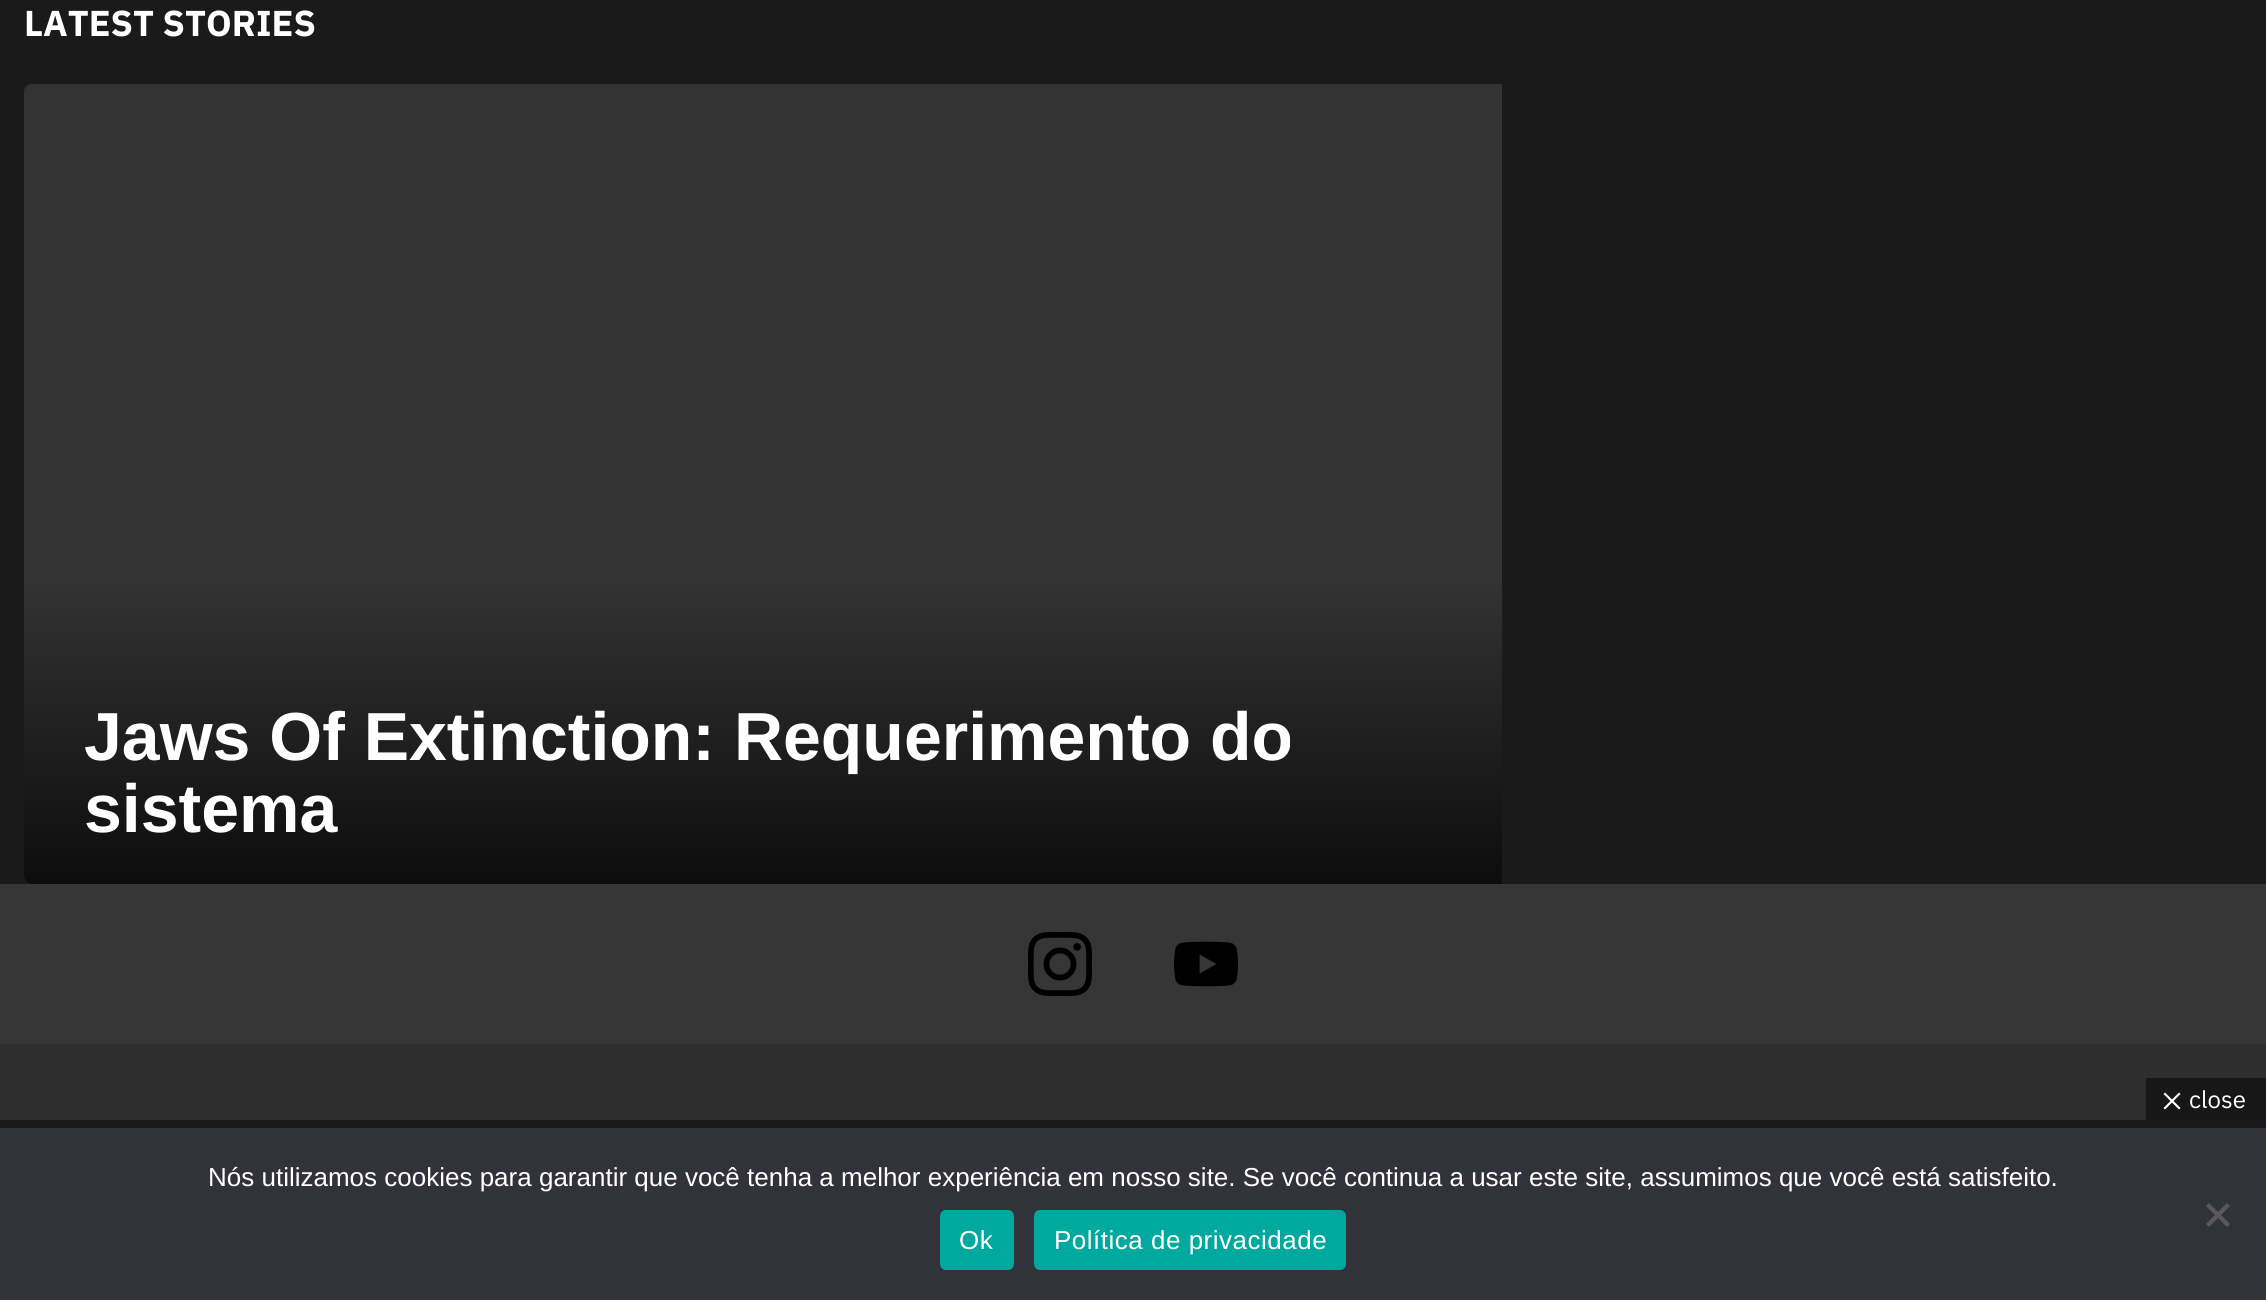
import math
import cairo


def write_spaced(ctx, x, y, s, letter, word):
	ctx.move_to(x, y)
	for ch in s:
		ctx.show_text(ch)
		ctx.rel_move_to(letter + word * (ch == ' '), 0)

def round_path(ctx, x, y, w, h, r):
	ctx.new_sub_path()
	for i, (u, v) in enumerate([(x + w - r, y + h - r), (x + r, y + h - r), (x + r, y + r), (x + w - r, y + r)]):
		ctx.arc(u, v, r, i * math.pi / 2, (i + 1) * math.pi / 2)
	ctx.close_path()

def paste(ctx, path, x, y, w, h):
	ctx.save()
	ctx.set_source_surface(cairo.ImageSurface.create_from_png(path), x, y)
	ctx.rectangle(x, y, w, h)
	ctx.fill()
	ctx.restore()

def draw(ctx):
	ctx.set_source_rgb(0.102, 0.102, 0.102)
	ctx.paint()
	ctx.select_font_face('IBM Plex Sans', cairo.FONT_SLANT_NORMAL, cairo.FONT_WEIGHT_BOLD)
	ctx.set_font_size(36)
	ctx.set_source_rgb(1, 1, 1)
	ctx.move_to(24, 36)
	ctx.show_text('LATEST STORIES')
	ctx.set_source_rgb(0.2, 0.2, 0.2)
	ctx.new_path()
	ctx.move_to(32, 84)
	ctx.line_to(1502, 84)
	ctx.line_to(1502, 884)
	ctx.line_to(32, 884)
	ctx.curve_to(27.5, 884, 24, 880.5, 24, 876)
	ctx.line_to(24, 92)
	ctx.curve_to(24, 87.5, 27.5, 84, 32, 84)
	ctx.close_path()
	ctx.fill()
	gradient = cairo.LinearGradient(763, 580, 763, 884)
	gradient.add_color_stop_rgba(0, 0, 0, 0, 0)
	gradient.add_color_stop_rgba(1, 0, 0, 0, 0.75)
	ctx.set_source(gradient)
	ctx.new_path()
	ctx.move_to(24, 580)
	ctx.line_to(1502, 580)
	ctx.line_to(1502, 884)
	ctx.line_to(32, 884)
	ctx.curve_to(27.5, 884, 24, 880.5, 24, 876)
	ctx.close_path()
	ctx.fill()
	ctx.select_font_face('Liberation Sans', cairo.FONT_SLANT_NORMAL, cairo.FONT_WEIGHT_BOLD)
	ctx.set_font_size(68)
	ctx.set_source_rgb(1, 1, 1)
	ctx.move_to(84, 760)
	ctx.show_text('Jaws Of Extinction: Requerimento do')
	ctx.move_to(84, 832)
	ctx.show_text('sistema')
	ctx.set_source_rgb(0.212, 0.212, 0.212)
	ctx.rectangle(0, 884, 2266, 160)
	ctx.fill()
	paste(ctx, 'media/1.png', 1028, 932, 64, 64)
	paste(ctx, 'media/2.png', 1174, 941, 64, 46)
	ctx.set_source_rgb(0.18, 0.18, 0.18)
	ctx.rectangle(0, 1044, 2266, 76)
	ctx.fill()
	ctx.set_source_rgb(0.09, 0.09, 0.09)
	ctx.rectangle(2146, 1078, 120, 42)
	ctx.fill()
	ctx.set_source_rgb(1, 1, 1)
	ctx.new_path()
	ctx.move_to(2165, 1092.5)
	ctx.line_to(2180.5, 1108)
	ctx.line_to(2179, 1109.5)
	ctx.line_to(2163.5, 1094)
	ctx.close_path()
	ctx.fill()
	ctx.select_font_face('IBM Plex Sans')
	ctx.set_font_size(24)
	ctx.move_to(2189, 1108)
	ctx.show_text('close')
	ctx.new_path()
	ctx.move_to(2179, 1092.5)
	ctx.line_to(2180.5, 1094)
	ctx.line_to(2165, 1109.5)
	ctx.line_to(2163.5, 1108)
	ctx.close_path()
	ctx.fill()
	ctx.set_source_rgb(0.196, 0.196, 0.227)
	ctx.rectangle(0, 1128, 2266, 172)
	ctx.fill()
	ctx.select_font_face('Liberation Sans')
	ctx.set_font_size(26)
	ctx.set_source_rgb(1, 1, 1)
	ctx.move_to(208, 1186)
	ctx.show_text('Nós utilizamos cookies para garantir que você tenha a melhor experiência em nosso site. Se você continua a usar este site, assumimos que você está satisfeito.')
	ctx.set_source_rgb(0.349, 0.349, 0.365)
	ctx.new_path()
	ctx.move_to(2227, 1203)
	ctx.line_to(2230, 1206)
	ctx.line_to(2209, 1227)
	ctx.line_to(2206, 1224)
	ctx.close_path()
	ctx.fill()
	ctx.new_path()
	ctx.move_to(2206, 1206)
	ctx.line_to(2209, 1203)
	ctx.line_to(2230, 1224)
	ctx.line_to(2227, 1227)
	ctx.close_path()
	ctx.fill()
	ctx.set_source_rgb(0, 0.663, 0.616)
	round_path(ctx, 940, 1210, 74, 60, 6)
	ctx.fill()
	ctx.set_source_rgb(1, 1, 1)
	write_spaced(ctx, 959, 1249, 'Ok', 0.5, 0)
	ctx.set_source_rgb(0, 0.663, 0.616)
	round_path(ctx, 1034, 1210, 312, 60, 6)
	ctx.fill()
	ctx.set_source_rgb(1, 1, 1)
	write_spaced(ctx, 1054, 1249, 'Política de privacidade', 0.5, 0)


surface = cairo.ImageSurface(cairo.FORMAT_RGB24, 2266, 1300)
ctx = cairo.Context(surface)
options = cairo.FontOptions()
options.set_hint_metrics(cairo.HINT_METRICS_OFF)
options.set_hint_style(cairo.HINT_STYLE_NONE)
ctx.set_font_options(options)
ctx.set_miter_limit(4)
draw(ctx)
surface.write_to_png('image.png')
